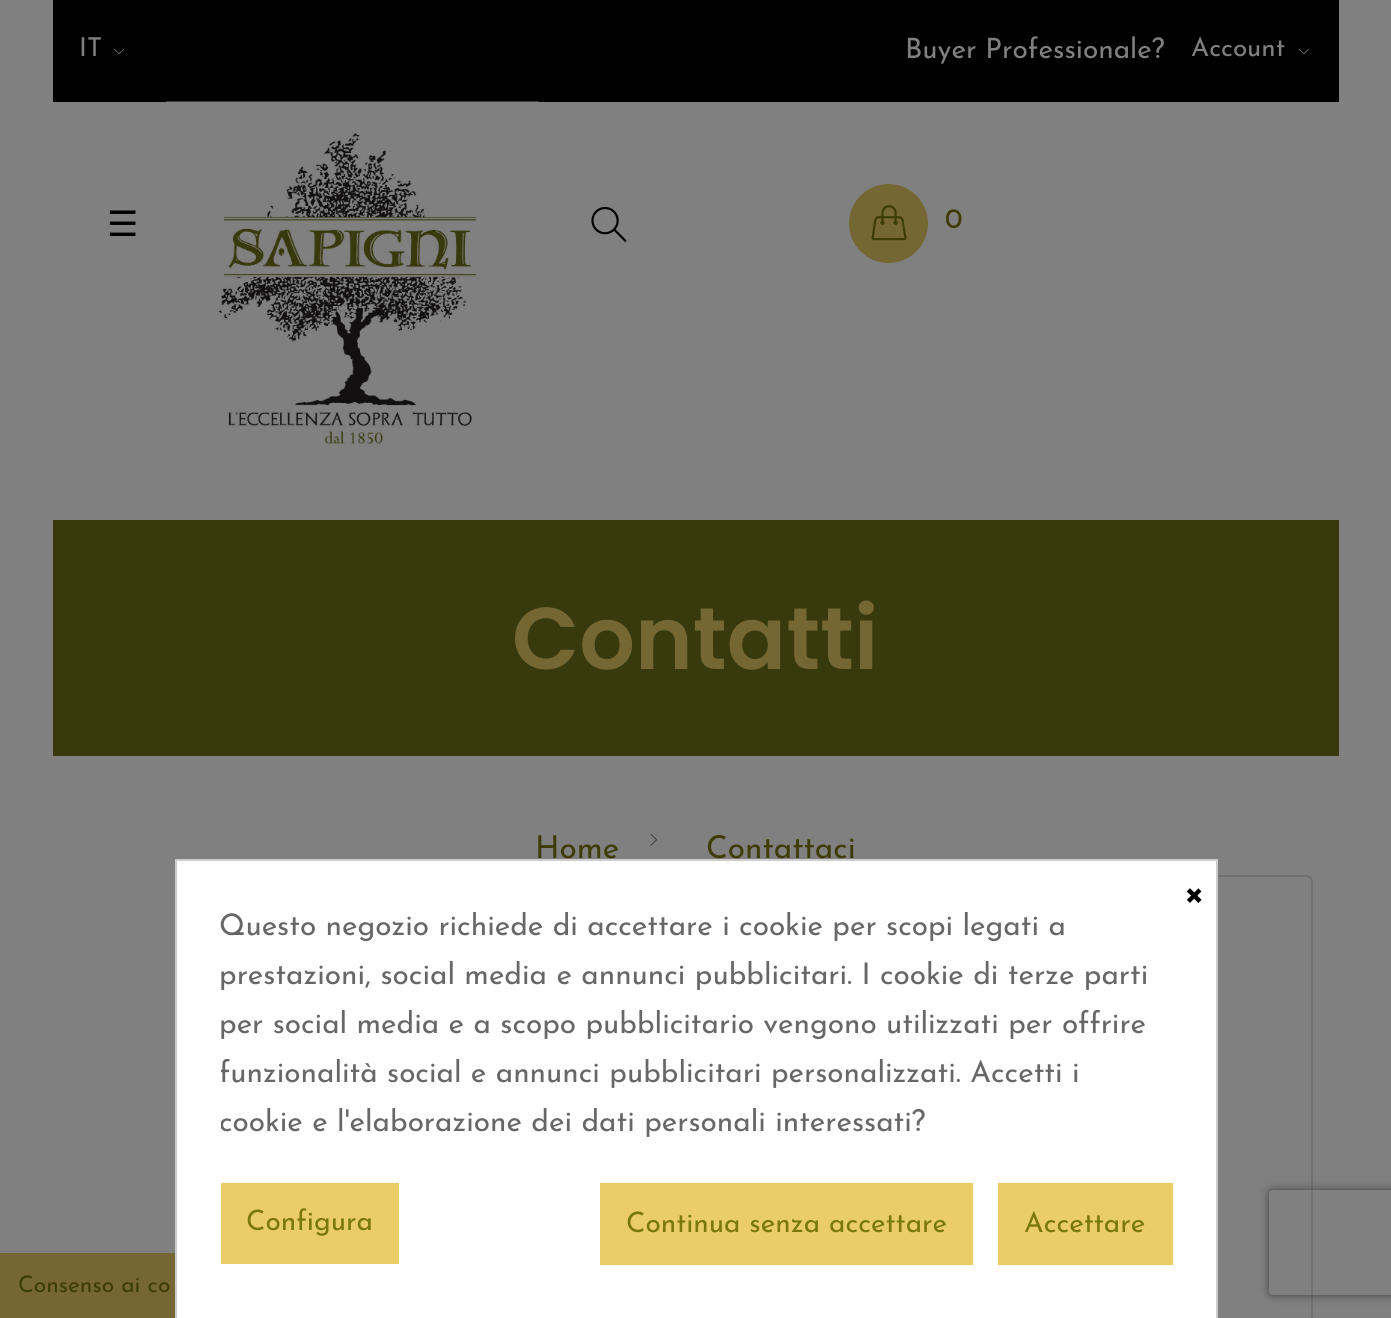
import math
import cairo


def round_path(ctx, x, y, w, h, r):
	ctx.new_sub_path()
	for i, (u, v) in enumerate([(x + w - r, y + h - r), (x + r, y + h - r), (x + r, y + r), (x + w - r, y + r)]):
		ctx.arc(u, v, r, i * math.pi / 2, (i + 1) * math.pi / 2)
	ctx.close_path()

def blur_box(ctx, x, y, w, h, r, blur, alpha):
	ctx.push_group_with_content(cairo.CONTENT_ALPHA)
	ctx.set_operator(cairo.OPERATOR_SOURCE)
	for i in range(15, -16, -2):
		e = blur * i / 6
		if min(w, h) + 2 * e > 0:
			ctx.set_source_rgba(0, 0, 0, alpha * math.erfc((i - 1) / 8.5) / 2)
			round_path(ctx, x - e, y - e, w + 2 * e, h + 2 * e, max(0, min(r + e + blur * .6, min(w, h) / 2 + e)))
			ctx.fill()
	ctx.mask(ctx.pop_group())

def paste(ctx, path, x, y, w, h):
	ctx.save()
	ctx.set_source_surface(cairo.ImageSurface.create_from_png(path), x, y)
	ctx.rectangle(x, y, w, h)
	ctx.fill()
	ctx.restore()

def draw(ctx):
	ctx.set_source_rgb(0.502, 0.502, 0.502)
	ctx.paint()
	ctx.set_source_rgb(0, 0, 0)
	ctx.rectangle(53, 0, 1286, 102)
	ctx.fill()
	ctx.select_font_face('Josefin Sans')
	ctx.set_font_size(26)
	ctx.set_source_rgb(0.502, 0.502, 0.502)
	ctx.move_to(79, 56)
	ctx.show_text('IT')
	paste(ctx, 'media/1.png', 113, 48, 12, 7)
	ctx.set_font_size(28)
	ctx.move_to(905, 58)
	ctx.show_text('Buyer Professionale?')
	ctx.set_font_size(26)
	ctx.move_to(1191, 56)
	ctx.show_text('Account')
	paste(ctx, 'media/2.png', 1298, 48, 11, 7)
	ctx.select_font_face('DejaVu Sans')
	ctx.set_font_size(35)
	ctx.set_source_rgb(0, 0, 0)
	ctx.move_to(107, 236)
	ctx.show_text('☰')
	paste(ctx, 'media/3.png', 166, 101, 373, 344)
	paste(ctx, 'media/4.png', 591, 206, 36, 36)
	ctx.set_source_rgb(0.459, 0.404, 0.204)
	ctx.arc(888.5, 223.5, 39.5, 0, 2 * math.pi)
	ctx.fill()
	paste(ctx, 'media/5.png', 871, 205, 36, 36)
	ctx.select_font_face('Josefin Sans')
	ctx.set_font_size(28)
	ctx.set_source_rgb(0.239, 0.235, 0.02)
	ctx.move_to(945, 228)
	ctx.show_text('0')
	ctx.set_source_rgb(0.22, 0.227, 0.051)
	ctx.rectangle(53, 520, 1286, 236)
	ctx.fill()
	ctx.select_font_face('Poppins SemiBold')
	ctx.set_font_size(87.5)
	ctx.set_source_rgb(0.459, 0.404, 0.204)
	ctx.move_to(512, 669)
	ctx.show_text('Contatti')
	ctx.select_font_face('Josefin Sans')
	ctx.set_font_size(31.5)
	ctx.set_source_rgb(0.239, 0.235, 0.02)
	ctx.move_to(535, 858)
	ctx.show_text('Home')
	paste(ctx, 'media/6.png', 650, 833, 7, 13)
	ctx.move_to(706, 858)
	ctx.show_text('Contattaci')
	round_path(ctx, 509, 876, 803, 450, 6)
	ctx.set_source_rgb(0.439, 0.439, 0.439)
	ctx.stroke()
	ctx.set_source_rgb(0.459, 0.404, 0.204)
	ctx.rectangle(0, 1253, 175, 65)
	ctx.fill()
	ctx.set_font_size(22.75)
	ctx.set_source_rgb(0.239, 0.235, 0.02)
	ctx.move_to(18, 1292)
	ctx.show_text('Consenso ai co')
	ctx.set_source_rgb(1, 1, 1)
	ctx.rectangle(176, 860, 1041, 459)
	ctx.fill_preserve()
	ctx.set_source_rgb(0.8, 0.8, 0.8)
	ctx.stroke()
	ctx.set_font_size(44)
	ctx.set_source_rgb(0, 0, 0)
	ctx.move_to(1182, 903)
	ctx.show_text('×')
	ctx.set_font_size(29.75)
	ctx.set_source_rgb(0.404, 0.404, 0.404)
	for x, y, s in [
		(219, 935, 'Questo negozio richiede di accettare i cookie per scopi legati a'),
		(219, 984, 'prestazioni, social media e annunci pubblicitari. I cookie di terze parti'),
		(219, 1033, 'per social media e a scopo pubblicitario vengono utilizzati per offrire'),
	]:
		ctx.move_to(x, y)
		ctx.show_text(s)
	ctx.save()
	ctx.rectangle(221, 903, 952, 245)
	ctx.clip()
	ctx.move_to(219, 1082)
	ctx.show_text('funzionalità social e annunci pubblicitari personalizzati. Accetti i')
	ctx.move_to(219, 1131)
	ctx.show_text('cookie e l\'elaborazione dei dati personali interessati?')
	ctx.restore()
	ctx.set_source_rgb(0.918, 0.804, 0.404)
	ctx.rectangle(221, 1183, 178, 81)
	ctx.fill()
	ctx.set_font_size(28)
	ctx.set_source_rgb(0.478, 0.471, 0.039)
	ctx.move_to(246, 1230)
	ctx.show_text('Configura')
	ctx.set_source_rgb(0.918, 0.804, 0.404)
	ctx.rectangle(600, 1183, 373, 82)
	ctx.fill()
	ctx.set_source_rgb(0.478, 0.471, 0.039)
	ctx.move_to(626, 1232)
	ctx.show_text('Continua senza accettare')
	ctx.set_source_rgb(0.918, 0.804, 0.404)
	ctx.rectangle(998, 1183, 175, 82)
	ctx.fill()
	ctx.set_source_rgb(0.478, 0.471, 0.039)
	ctx.move_to(1024, 1232)
	ctx.show_text('Accettare')
	ctx.save()
	ctx.set_fill_rule(cairo.FILL_RULE_EVEN_ODD)
	ctx.new_path()
	ctx.move_to(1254, 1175)
	ctx.line_to(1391, 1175)
	ctx.line_to(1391, 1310)
	ctx.line_to(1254, 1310)
	ctx.close_path()
	ctx.move_to(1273, 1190)
	ctx.line_to(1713, 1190)
	ctx.curve_to(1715, 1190, 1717, 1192, 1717, 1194)
	ctx.line_to(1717, 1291)
	ctx.curve_to(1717, 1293, 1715, 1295, 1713, 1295)
	ctx.line_to(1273, 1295)
	ctx.curve_to(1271, 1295, 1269, 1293, 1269, 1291)
	ctx.line_to(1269, 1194)
	ctx.curve_to(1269, 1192, 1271, 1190, 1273, 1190)
	ctx.close_path()
	ctx.clip()
	ctx.set_source_rgb(0.251, 0.251, 0.251)
	blur_box(ctx, 1269, 1190, 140, 105, 4, 4.5, 1)
	ctx.restore()


surface = cairo.ImageSurface(cairo.FORMAT_RGB24, 1391, 1318)
ctx = cairo.Context(surface)
options = cairo.FontOptions()
options.set_hint_metrics(cairo.HINT_METRICS_OFF)
options.set_hint_style(cairo.HINT_STYLE_NONE)
ctx.set_font_options(options)
ctx.set_miter_limit(4)
draw(ctx)
surface.write_to_png('image.png')
